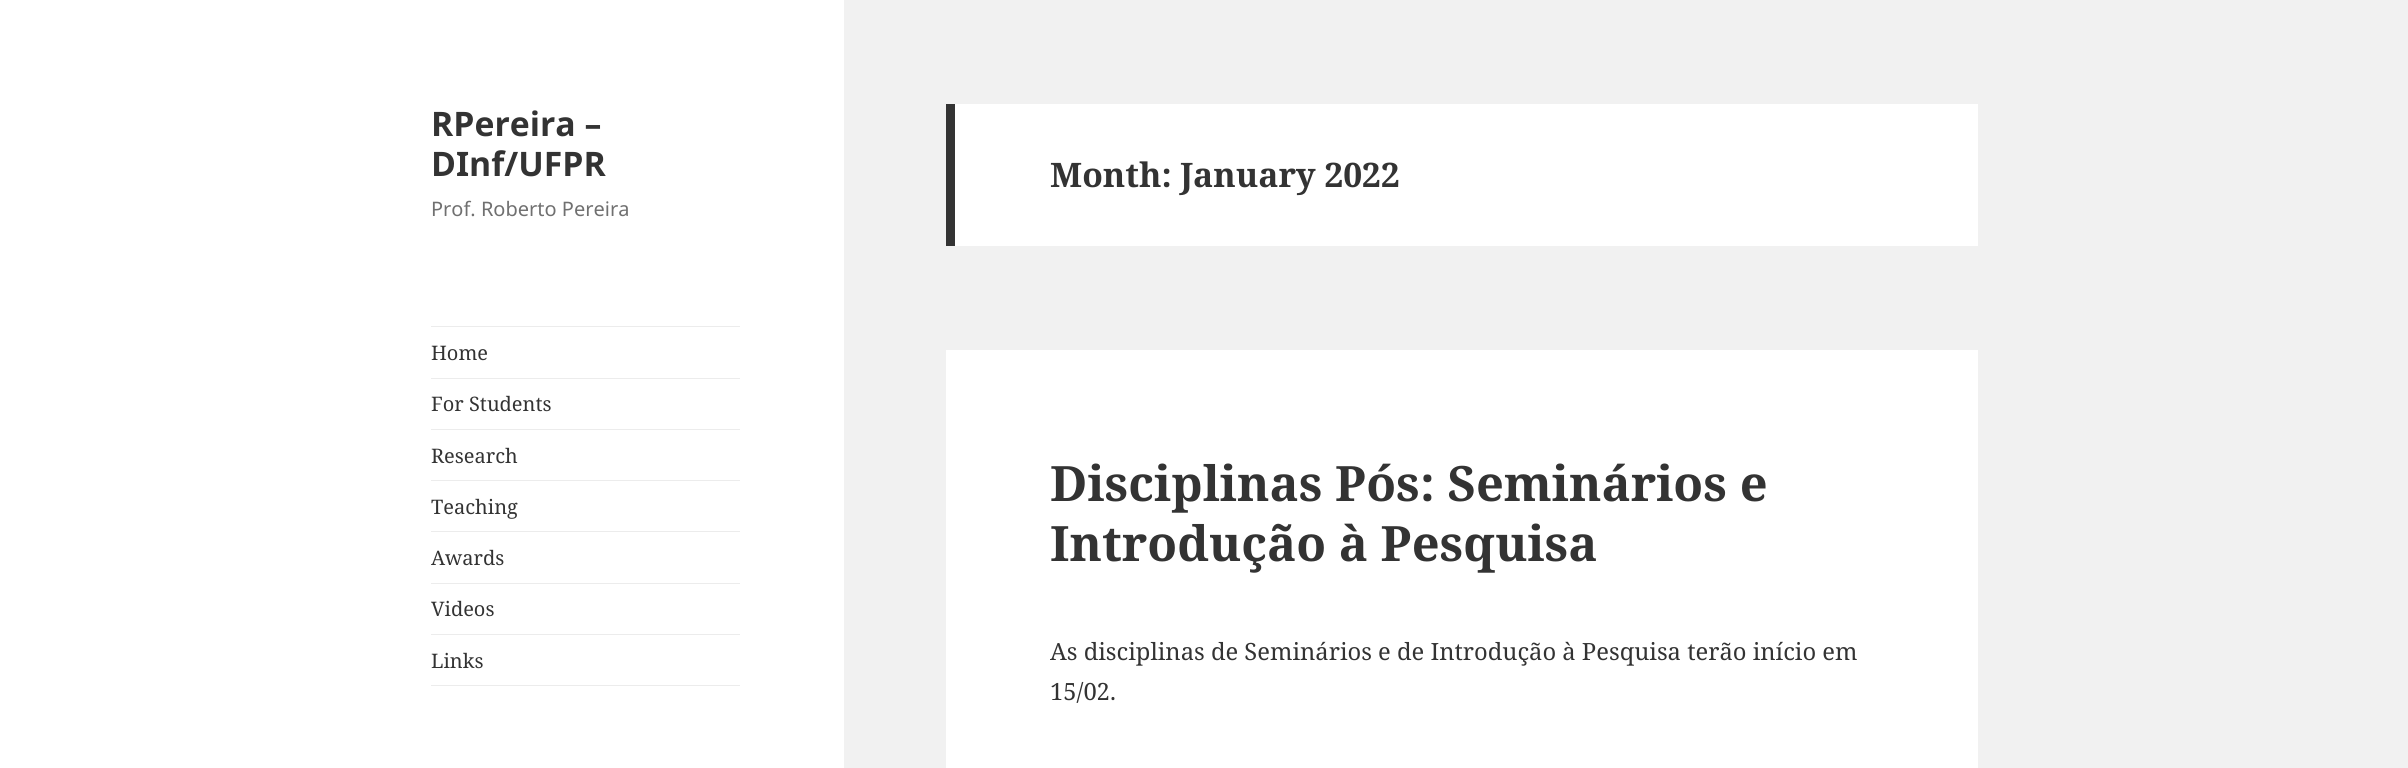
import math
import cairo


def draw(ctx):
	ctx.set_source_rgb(0.945, 0.945, 0.945)
	ctx.paint()
	ctx.set_source_rgb(1, 1, 1)
	ctx.rectangle(0, 0, 844, 768)
	ctx.fill()
	ctx.select_font_face('Noto Sans', cairo.FONT_SLANT_NORMAL, cairo.FONT_WEIGHT_BOLD)
	ctx.set_font_size(33.75)
	ctx.set_source_rgb(0.2, 0.2, 0.2)
	ctx.move_to(431, 136)
	ctx.show_text('RPereira –')
	ctx.move_to(431, 176)
	ctx.show_text('DInf/UFPR')
	ctx.select_font_face('Noto Sans')
	ctx.set_font_size(20)
	ctx.set_source_rgb(0.439, 0.439, 0.439)
	ctx.move_to(431, 216)
	ctx.show_text('Prof. Roberto Pereira')
	ctx.set_source_rgb(0.922, 0.922, 0.922)
	ctx.rectangle(431, 326, 309, 1)
	ctx.fill()
	ctx.rectangle(431, 685, 309, 1)
	ctx.fill()
	ctx.select_font_face('Noto Serif')
	ctx.set_source_rgb(0.2, 0.2, 0.2)
	ctx.move_to(431, 360)
	ctx.show_text('Home')
	ctx.set_source_rgb(0.922, 0.922, 0.922)
	ctx.rectangle(431, 378, 309, 1)
	ctx.fill()
	ctx.set_source_rgb(0.2, 0.2, 0.2)
	ctx.move_to(431, 411)
	ctx.show_text('For Students')
	ctx.set_source_rgb(0.922, 0.922, 0.922)
	ctx.rectangle(431, 429, 309, 1)
	ctx.fill()
	ctx.set_source_rgb(0.2, 0.2, 0.2)
	ctx.move_to(431, 463)
	ctx.show_text('Research')
	ctx.set_source_rgb(0.922, 0.922, 0.922)
	ctx.rectangle(431, 480, 309, 1)
	ctx.fill()
	ctx.set_source_rgb(0.2, 0.2, 0.2)
	ctx.move_to(431, 514)
	ctx.show_text('Teaching')
	ctx.set_source_rgb(0.922, 0.922, 0.922)
	ctx.rectangle(431, 531, 309, 1)
	ctx.fill()
	ctx.set_source_rgb(0.2, 0.2, 0.2)
	ctx.move_to(431, 565)
	ctx.show_text('Awards')
	ctx.set_source_rgb(0.922, 0.922, 0.922)
	ctx.rectangle(431, 583, 309, 1)
	ctx.fill()
	ctx.set_source_rgb(0.2, 0.2, 0.2)
	ctx.move_to(431, 616)
	ctx.show_text('Videos')
	ctx.set_source_rgb(0.922, 0.922, 0.922)
	ctx.rectangle(431, 634, 309, 1)
	ctx.fill()
	ctx.set_source_rgb(0.2, 0.2, 0.2)
	ctx.move_to(431, 668)
	ctx.show_text('Links')
	ctx.set_source_rgb(1, 1, 1)
	ctx.rectangle(955, 104, 1023, 142)
	ctx.fill()
	ctx.set_source_rgb(0.2, 0.2, 0.2)
	ctx.rectangle(946, 104, 9, 142)
	ctx.fill()
	ctx.select_font_face('Noto Serif', cairo.FONT_SLANT_NORMAL, cairo.FONT_WEIGHT_BOLD)
	ctx.set_font_size(33.75)
	ctx.move_to(1050, 187)
	ctx.show_text('Month: January 2022')
	ctx.set_source_rgb(1, 1, 1)
	ctx.rectangle(946, 350, 1032, 418)
	ctx.fill()
	ctx.set_font_size(48.75)
	ctx.set_source_rgb(0.2, 0.2, 0.2)
	ctx.move_to(1050, 501)
	ctx.show_text('Disciplinas Pós: Seminários e')
	ctx.move_to(1050, 561)
	ctx.show_text('Introdução à Pesquisa')
	ctx.select_font_face('Noto Serif')
	ctx.set_font_size(23.75)
	ctx.move_to(1050, 660)
	ctx.show_text('As disciplinas de Seminários e de Introdução à Pesquisa terão início em')
	ctx.move_to(1050, 700)
	ctx.show_text('15/02.')


surface = cairo.ImageSurface(cairo.FORMAT_RGB24, 2408, 768)
ctx = cairo.Context(surface)
options = cairo.FontOptions()
options.set_hint_metrics(cairo.HINT_METRICS_OFF)
options.set_hint_style(cairo.HINT_STYLE_NONE)
ctx.set_font_options(options)
ctx.set_miter_limit(4)
draw(ctx)
surface.write_to_png('image.png')
